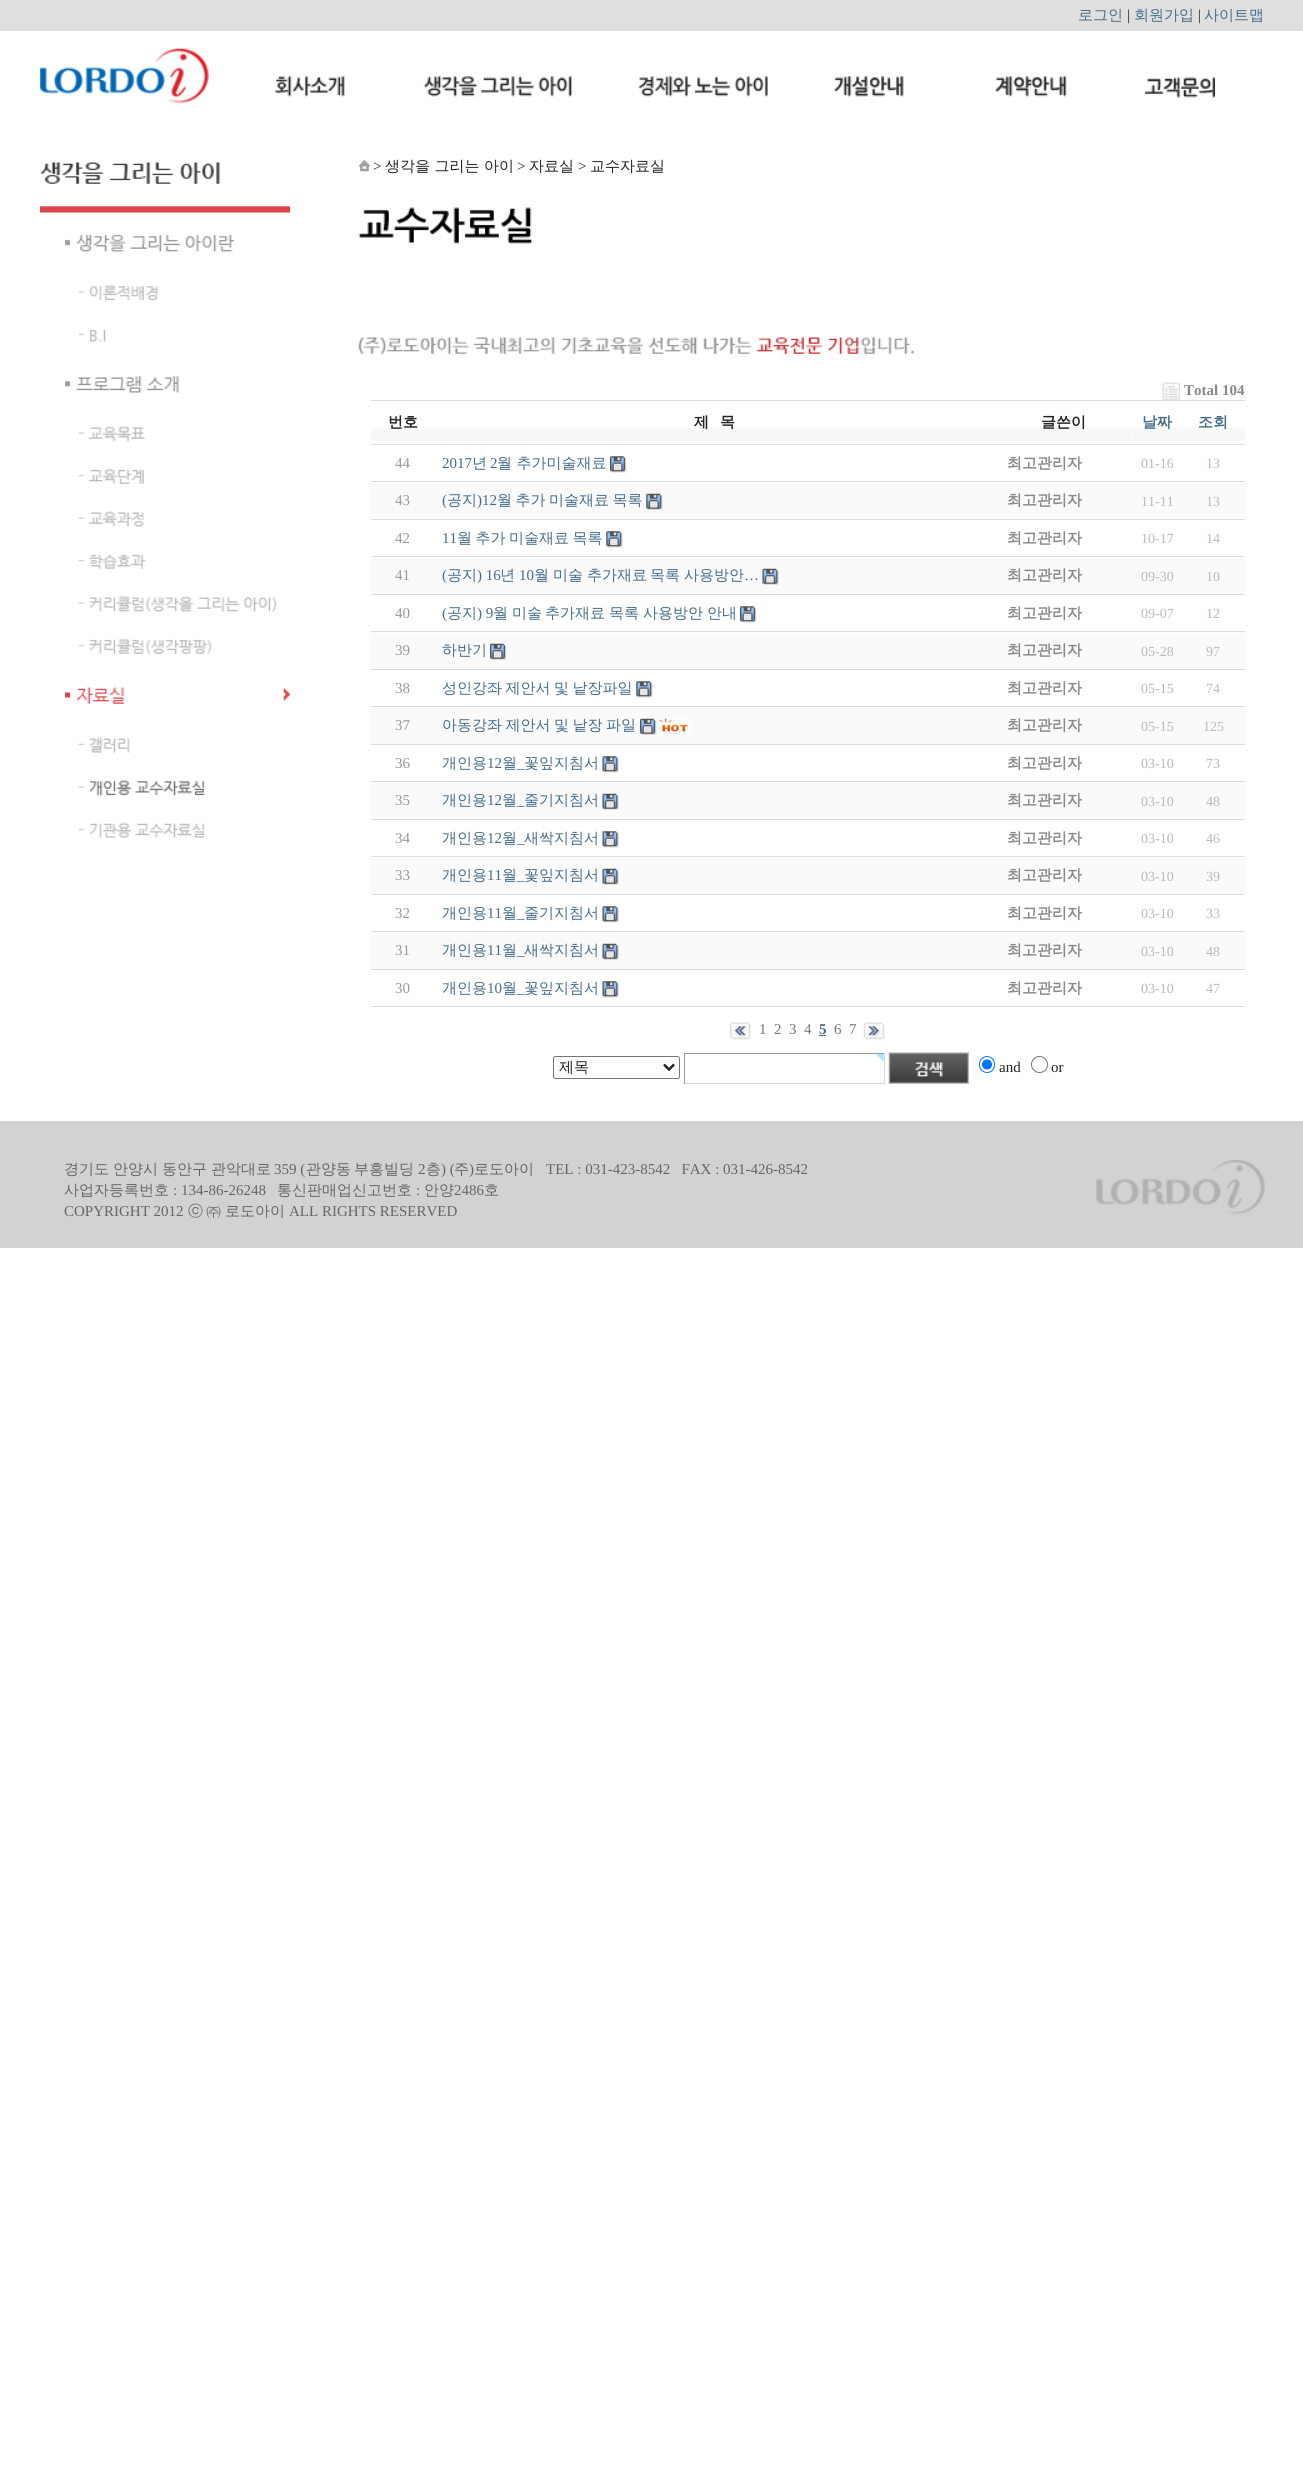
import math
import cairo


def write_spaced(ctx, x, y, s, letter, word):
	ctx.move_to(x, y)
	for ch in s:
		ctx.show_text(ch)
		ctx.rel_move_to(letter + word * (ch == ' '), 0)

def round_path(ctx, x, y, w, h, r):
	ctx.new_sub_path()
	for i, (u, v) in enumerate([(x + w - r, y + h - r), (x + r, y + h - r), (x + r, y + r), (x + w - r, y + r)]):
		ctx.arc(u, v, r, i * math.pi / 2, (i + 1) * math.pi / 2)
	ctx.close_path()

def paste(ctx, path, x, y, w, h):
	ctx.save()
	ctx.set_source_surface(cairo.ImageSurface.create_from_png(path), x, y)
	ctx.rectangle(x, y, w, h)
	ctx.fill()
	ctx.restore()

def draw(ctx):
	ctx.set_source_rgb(1, 1, 1)
	ctx.paint()
	ctx.set_source_rgb(0.875, 0.875, 0.875)
	ctx.rectangle(0, 0, 1303, 31)
	ctx.fill()
	ctx.select_font_face('WenQuanYi Zen Hei Medium')
	ctx.set_font_size(15)
	ctx.set_source_rgb(0.275, 0.424, 0.541)
	ctx.move_to(1078, 20)
	ctx.show_text('로그인')
	ctx.select_font_face('Liberation Serif')
	ctx.set_source_rgb(0.133, 0.133, 0.133)
	ctx.move_to(1127, 20)
	ctx.show_text('|')
	ctx.select_font_face('WenQuanYi Zen Hei Medium')
	ctx.set_source_rgb(0.275, 0.424, 0.541)
	ctx.move_to(1134, 20)
	ctx.show_text('회원가입')
	ctx.select_font_face('Liberation Serif')
	ctx.set_source_rgb(0.133, 0.133, 0.133)
	ctx.move_to(1198, 20)
	ctx.show_text('|')
	ctx.select_font_face('WenQuanYi Zen Hei Medium')
	ctx.set_source_rgb(0.275, 0.424, 0.541)
	ctx.move_to(1204, 20)
	ctx.show_text('사이트맵')
	paste(ctx, 'media/1.png', 40, 48, 169, 56)
	paste(ctx, 'media/2.png', 275, 76, 70, 21)
	paste(ctx, 'media/3.png', 423, 76, 150, 21)
	paste(ctx, 'media/4.png', 638, 76, 130, 21)
	paste(ctx, 'media/5.png', 833, 76, 71, 21)
	paste(ctx, 'media/6.png', 995, 76, 72, 21)
	paste(ctx, 'media/7.png', 1145, 77, 70, 21)
	paste(ctx, 'media/8.png', 40, 162, 250, 51)
	paste(ctx, 'media/9.png', 65, 234, 169, 19)
	paste(ctx, 'media/10.png', 78, 285, 80, 16)
	paste(ctx, 'media/11.png', 78, 329, 28, 13)
	paste(ctx, 'media/12.png', 65, 376, 114, 17)
	paste(ctx, 'media/13.png', 78, 426, 68, 16)
	paste(ctx, 'media/14.png', 78, 468, 66, 16)
	paste(ctx, 'media/15.png', 78, 511, 66, 16)
	paste(ctx, 'media/16.png', 78, 553, 68, 16)
	paste(ctx, 'media/17.png', 78, 596, 199, 16)
	paste(ctx, 'media/18.png', 78, 638, 134, 16)
	paste(ctx, 'media/19.png', 65, 687, 225, 17)
	paste(ctx, 'media/20.png', 78, 737, 52, 16)
	paste(ctx, 'media/21.png', 78, 779, 128, 17)
	paste(ctx, 'media/22.png', 78, 822, 127, 16)
	paste(ctx, 'media/23.png', 358, 160, 12, 12)
	ctx.select_font_face('Liberation Serif')
	ctx.set_source_rgb(0.133, 0.133, 0.133)
	ctx.move_to(373, 171)
	ctx.show_text('>')
	ctx.select_font_face('WenQuanYi Zen Hei Medium')
	ctx.move_to(385, 171)
	ctx.show_text('생각을 그리는 아이')
	ctx.select_font_face('Liberation Serif')
	ctx.move_to(517, 171)
	ctx.show_text('>')
	ctx.select_font_face('WenQuanYi Zen Hei Medium')
	ctx.move_to(529, 171)
	ctx.show_text('자료실')
	ctx.select_font_face('Liberation Serif')
	ctx.move_to(578, 171)
	ctx.show_text('>')
	ctx.select_font_face('WenQuanYi Zen Hei Medium')
	ctx.move_to(590, 171)
	ctx.show_text('교수자료실')
	paste(ctx, 'media/24.png', 358, 207, 174, 37)
	paste(ctx, 'media/25.png', 358, 337, 556, 17)
	paste(ctx, 'media/26.png', 1162, 382, 18, 18)
	ctx.select_font_face('Liberation Serif', cairo.FONT_SLANT_NORMAL, cairo.FONT_WEIGHT_BOLD)
	ctx.set_source_rgb(0.533, 0.533, 0.533)
	ctx.move_to(1184, 395)
	ctx.show_text('Total 104')
	paste(ctx, 'media/27.png', 371, 427, 63, 14)
	ctx.set_source_rgb(0.867, 0.867, 0.867)
	ctx.rectangle(371, 400, 874, 1)
	ctx.fill()
	ctx.rectangle(371, 444, 874, 1)
	ctx.fill()
	ctx.select_font_face('WenQuanYi Zen Hei', cairo.FONT_SLANT_NORMAL, cairo.FONT_WEIGHT_BOLD)
	ctx.set_source_rgb(0.133, 0.133, 0.133)
	ctx.move_to(388, 427)
	ctx.show_text('번호')
	paste(ctx, 'media/28.png', 434, 427, 561, 14)
	ctx.move_to(694, 427)
	ctx.show_text('제')
	ctx.move_to(720, 427)
	ctx.show_text('목')
	paste(ctx, 'media/29.png', 995, 427, 138, 14)
	ctx.move_to(1041, 427)
	ctx.show_text('글쓴이')
	paste(ctx, 'media/30.png', 1133, 427, 50, 14)
	ctx.set_source_rgb(0.275, 0.424, 0.541)
	ctx.move_to(1142, 427)
	ctx.show_text('날짜')
	paste(ctx, 'media/31.png', 1183, 427, 62, 14)
	ctx.move_to(1198, 427)
	ctx.show_text('조회')
	ctx.set_source_rgb(0.867, 0.867, 0.867)
	ctx.rectangle(371, 481, 63, 1)
	ctx.fill()
	ctx.select_font_face('Liberation Serif')
	ctx.set_source_rgb(0.6, 0.6, 0.6)
	ctx.move_to(395, 468)
	ctx.show_text('44')
	ctx.set_source_rgb(0.275, 0.424, 0.541)
	ctx.move_to(442, 468)
	ctx.show_text('2017')
	ctx.select_font_face('WenQuanYi Zen Hei Medium')
	ctx.move_to(472, 468)
	ctx.show_text('년')
	ctx.select_font_face('Liberation Serif')
	ctx.move_to(490, 468)
	ctx.show_text('2')
	ctx.select_font_face('WenQuanYi Zen Hei Medium')
	ctx.move_to(497, 468)
	ctx.show_text('월 추가미술재료')
	paste(ctx, 'media/32.png', 610, 456, 17, 17)
	ctx.set_source_rgb(0.867, 0.867, 0.867)
	ctx.rectangle(434, 481, 811, 1)
	ctx.fill()
	ctx.select_font_face('WenQuanYi Zen Hei', cairo.FONT_SLANT_NORMAL, cairo.FONT_WEIGHT_BOLD)
	ctx.set_source_rgb(0.533, 0.533, 0.533)
	ctx.move_to(1007, 468)
	ctx.show_text('최고관리자')
	ctx.select_font_face('Liberation Serif')
	ctx.set_font_size(14)
	ctx.set_source_rgb(0.729, 0.729, 0.729)
	ctx.move_to(1141, 468)
	ctx.show_text('01-16')
	ctx.move_to(1206, 468)
	ctx.show_text('13')
	ctx.set_source_rgb(0.98, 0.98, 0.98)
	ctx.rectangle(371, 483, 874, 36)
	ctx.fill()
	ctx.set_source_rgb(0.867, 0.867, 0.867)
	ctx.rectangle(371, 519, 63, 1)
	ctx.fill()
	ctx.set_font_size(15)
	ctx.set_source_rgb(0.6, 0.6, 0.6)
	ctx.move_to(395, 505)
	ctx.show_text('43')
	ctx.set_source_rgb(0.275, 0.424, 0.541)
	ctx.move_to(442, 505)
	ctx.show_text('(')
	ctx.select_font_face('WenQuanYi Zen Hei Medium')
	ctx.move_to(447, 505)
	ctx.show_text('공지')
	ctx.select_font_face('Liberation Serif')
	ctx.move_to(477, 505)
	ctx.show_text(')12')
	ctx.select_font_face('WenQuanYi Zen Hei Medium')
	write_spaced(ctx, 497, 505, '월 추가 미술재료 목록', 0, -1)
	paste(ctx, 'media/33.png', 646, 493, 17, 17)
	ctx.set_source_rgb(0.867, 0.867, 0.867)
	ctx.rectangle(434, 519, 811, 1)
	ctx.fill()
	ctx.select_font_face('WenQuanYi Zen Hei', cairo.FONT_SLANT_NORMAL, cairo.FONT_WEIGHT_BOLD)
	ctx.set_source_rgb(0.533, 0.533, 0.533)
	ctx.move_to(1007, 505)
	ctx.show_text('최고관리자')
	ctx.select_font_face('Liberation Serif')
	ctx.set_font_size(14)
	ctx.set_source_rgb(0.729, 0.729, 0.729)
	ctx.move_to(1141, 506)
	ctx.show_text('11-11')
	ctx.move_to(1206, 506)
	ctx.show_text('13')
	ctx.set_source_rgb(0.867, 0.867, 0.867)
	ctx.rectangle(371, 556, 63, 1)
	ctx.fill()
	ctx.set_font_size(15)
	ctx.set_source_rgb(0.6, 0.6, 0.6)
	ctx.move_to(395, 543)
	ctx.show_text('42')
	ctx.set_source_rgb(0.275, 0.424, 0.541)
	ctx.move_to(442, 543)
	ctx.show_text('11')
	ctx.select_font_face('WenQuanYi Zen Hei Medium')
	write_spaced(ctx, 457, 543, '월 추가 미술재료 목록', 0, -1)
	paste(ctx, 'media/34.png', 606, 531, 17, 17)
	ctx.set_source_rgb(0.867, 0.867, 0.867)
	ctx.rectangle(434, 556, 811, 1)
	ctx.fill()
	ctx.select_font_face('WenQuanYi Zen Hei', cairo.FONT_SLANT_NORMAL, cairo.FONT_WEIGHT_BOLD)
	ctx.set_source_rgb(0.533, 0.533, 0.533)
	ctx.move_to(1007, 543)
	ctx.show_text('최고관리자')
	ctx.select_font_face('Liberation Serif')
	ctx.set_font_size(14)
	ctx.set_source_rgb(0.729, 0.729, 0.729)
	ctx.move_to(1141, 543)
	ctx.show_text('10-17')
	ctx.move_to(1206, 543)
	ctx.show_text('14')
	ctx.set_source_rgb(0.98, 0.98, 0.98)
	ctx.rectangle(371, 558, 874, 36)
	ctx.fill()
	ctx.set_source_rgb(0.867, 0.867, 0.867)
	ctx.rectangle(371, 594, 63, 1)
	ctx.fill()
	ctx.set_font_size(15)
	ctx.set_source_rgb(0.6, 0.6, 0.6)
	ctx.move_to(395, 580)
	ctx.show_text('41')
	ctx.set_source_rgb(0.275, 0.424, 0.541)
	ctx.move_to(442, 580)
	ctx.show_text('(')
	ctx.select_font_face('WenQuanYi Zen Hei Medium')
	ctx.move_to(447, 580)
	ctx.show_text('공지')
	ctx.select_font_face('Liberation Serif')
	ctx.move_to(477, 580)
	ctx.show_text(') 16')
	ctx.select_font_face('WenQuanYi Zen Hei Medium')
	ctx.move_to(500, 580)
	ctx.show_text('년')
	ctx.select_font_face('Liberation Serif')
	ctx.move_to(519, 580)
	ctx.show_text('10')
	ctx.select_font_face('WenQuanYi Zen Hei Medium')
	for x, y, s in [
		(534, 580, '월'),
		(553, 580, '미술'),
		(587, 580, '추가재료'),
		(650, 580, '목록'),
		(684, 580, '사용방안'),
	]:
		ctx.move_to(x, y)
		ctx.show_text(s)
	ctx.select_font_face('Liberation Serif')
	ctx.move_to(744, 580)
	ctx.show_text('…')
	paste(ctx, 'media/35.png', 762, 568, 17, 17)
	ctx.set_source_rgb(0.867, 0.867, 0.867)
	ctx.rectangle(434, 594, 811, 1)
	ctx.fill()
	ctx.select_font_face('WenQuanYi Zen Hei', cairo.FONT_SLANT_NORMAL, cairo.FONT_WEIGHT_BOLD)
	ctx.set_source_rgb(0.533, 0.533, 0.533)
	ctx.move_to(1007, 580)
	ctx.show_text('최고관리자')
	ctx.select_font_face('Liberation Serif')
	ctx.set_font_size(14)
	ctx.set_source_rgb(0.729, 0.729, 0.729)
	ctx.move_to(1141, 581)
	ctx.show_text('09-30')
	ctx.move_to(1206, 581)
	ctx.show_text('10')
	ctx.set_source_rgb(0.867, 0.867, 0.867)
	ctx.rectangle(371, 631, 63, 1)
	ctx.fill()
	ctx.set_font_size(15)
	ctx.set_source_rgb(0.6, 0.6, 0.6)
	ctx.move_to(395, 618)
	ctx.show_text('40')
	ctx.set_source_rgb(0.867, 0.867, 0.867)
	ctx.rectangle(434, 631, 561, 1)
	ctx.fill()
	ctx.set_source_rgb(0.275, 0.424, 0.541)
	ctx.move_to(442, 618)
	ctx.show_text('(')
	ctx.select_font_face('WenQuanYi Zen Hei Medium')
	ctx.move_to(447, 618)
	ctx.show_text('공지')
	ctx.select_font_face('Liberation Serif')
	ctx.move_to(477, 618)
	ctx.show_text(') 9')
	ctx.select_font_face('WenQuanYi Zen Hei Medium')
	for x, y, s in [
		(493, 618, '월'),
		(512, 618, '미술'),
		(545, 618, '추가재료'),
		(609, 618, '목록'),
		(643, 618, '사용방안'),
		(707, 618, '안내'),
	]:
		ctx.move_to(x, y)
		ctx.show_text(s)
	paste(ctx, 'media/36.png', 740, 606, 17, 17)
	ctx.set_source_rgb(0.867, 0.867, 0.867)
	ctx.rectangle(995, 631, 250, 1)
	ctx.fill()
	ctx.select_font_face('WenQuanYi Zen Hei', cairo.FONT_SLANT_NORMAL, cairo.FONT_WEIGHT_BOLD)
	ctx.set_source_rgb(0.533, 0.533, 0.533)
	ctx.move_to(1007, 618)
	ctx.show_text('최고관리자')
	ctx.select_font_face('Liberation Serif')
	ctx.set_font_size(14)
	ctx.set_source_rgb(0.729, 0.729, 0.729)
	ctx.move_to(1141, 618)
	ctx.show_text('09-07')
	ctx.move_to(1206, 618)
	ctx.show_text('12')
	ctx.set_source_rgb(0.98, 0.98, 0.98)
	ctx.rectangle(371, 633, 874, 36)
	ctx.fill()
	ctx.set_source_rgb(0.867, 0.867, 0.867)
	ctx.rectangle(371, 669, 63, 1)
	ctx.fill()
	ctx.set_font_size(15)
	ctx.set_source_rgb(0.6, 0.6, 0.6)
	ctx.move_to(395, 655)
	ctx.show_text('39')
	ctx.set_source_rgb(0.867, 0.867, 0.867)
	ctx.rectangle(434, 669, 561, 1)
	ctx.fill()
	ctx.select_font_face('WenQuanYi Zen Hei Medium')
	ctx.set_source_rgb(0.275, 0.424, 0.541)
	ctx.move_to(442, 655)
	ctx.show_text('하반기')
	paste(ctx, 'media/37.png', 490, 643, 17, 17)
	ctx.set_source_rgb(0.867, 0.867, 0.867)
	ctx.rectangle(995, 669, 250, 1)
	ctx.fill()
	ctx.select_font_face('WenQuanYi Zen Hei', cairo.FONT_SLANT_NORMAL, cairo.FONT_WEIGHT_BOLD)
	ctx.set_source_rgb(0.533, 0.533, 0.533)
	ctx.move_to(1007, 655)
	ctx.show_text('최고관리자')
	ctx.select_font_face('Liberation Serif')
	ctx.set_font_size(14)
	ctx.set_source_rgb(0.729, 0.729, 0.729)
	ctx.move_to(1141, 656)
	ctx.show_text('05-28')
	ctx.move_to(1206, 656)
	ctx.show_text('97')
	ctx.set_source_rgb(0.867, 0.867, 0.867)
	ctx.rectangle(371, 706, 63, 1)
	ctx.fill()
	ctx.set_font_size(15)
	ctx.set_source_rgb(0.6, 0.6, 0.6)
	ctx.move_to(395, 693)
	ctx.show_text('38')
	ctx.set_source_rgb(0.867, 0.867, 0.867)
	ctx.rectangle(434, 706, 561, 1)
	ctx.fill()
	ctx.select_font_face('WenQuanYi Zen Hei Medium')
	ctx.set_source_rgb(0.275, 0.424, 0.541)
	write_spaced(ctx, 442, 693, '성인강좌 제안서 및 낱장파일', 0, -1)
	paste(ctx, 'media/34.png', 636, 681, 17, 17)
	ctx.set_source_rgb(0.867, 0.867, 0.867)
	ctx.rectangle(995, 706, 250, 1)
	ctx.fill()
	ctx.select_font_face('WenQuanYi Zen Hei', cairo.FONT_SLANT_NORMAL, cairo.FONT_WEIGHT_BOLD)
	ctx.set_source_rgb(0.533, 0.533, 0.533)
	ctx.move_to(1007, 693)
	ctx.show_text('최고관리자')
	ctx.select_font_face('Liberation Serif')
	ctx.set_font_size(14)
	ctx.set_source_rgb(0.729, 0.729, 0.729)
	ctx.move_to(1141, 693)
	ctx.show_text('05-15')
	ctx.move_to(1206, 693)
	ctx.show_text('74')
	ctx.set_source_rgb(0.98, 0.98, 0.98)
	ctx.rectangle(371, 708, 874, 36)
	ctx.fill()
	ctx.set_source_rgb(0.867, 0.867, 0.867)
	ctx.rectangle(371, 744, 63, 1)
	ctx.fill()
	ctx.set_font_size(15)
	ctx.set_source_rgb(0.6, 0.6, 0.6)
	ctx.move_to(395, 730)
	ctx.show_text('37')
	ctx.set_source_rgb(0.867, 0.867, 0.867)
	ctx.rectangle(434, 744, 561, 1)
	ctx.fill()
	ctx.select_font_face('WenQuanYi Zen Hei Medium')
	ctx.set_source_rgb(0.275, 0.424, 0.541)
	write_spaced(ctx, 442, 730, '아동강좌 제안서 및 낱장 파일', 0, -1)
	paste(ctx, 'media/38.png', 640, 718, 17, 17)
	paste(ctx, 'media/39.png', 660, 718, 30, 17)
	ctx.set_source_rgb(0.867, 0.867, 0.867)
	ctx.rectangle(995, 744, 250, 1)
	ctx.fill()
	ctx.select_font_face('WenQuanYi Zen Hei', cairo.FONT_SLANT_NORMAL, cairo.FONT_WEIGHT_BOLD)
	ctx.set_source_rgb(0.533, 0.533, 0.533)
	ctx.move_to(1007, 730)
	ctx.show_text('최고관리자')
	ctx.select_font_face('Liberation Serif')
	ctx.set_font_size(14)
	ctx.set_source_rgb(0.729, 0.729, 0.729)
	ctx.move_to(1141, 731)
	ctx.show_text('05-15')
	ctx.move_to(1203, 731)
	ctx.show_text('125')
	ctx.set_source_rgb(0.867, 0.867, 0.867)
	ctx.rectangle(371, 781, 63, 1)
	ctx.fill()
	ctx.set_font_size(15)
	ctx.set_source_rgb(0.6, 0.6, 0.6)
	ctx.move_to(395, 768)
	ctx.show_text('36')
	ctx.set_source_rgb(0.867, 0.867, 0.867)
	ctx.rectangle(434, 781, 561, 1)
	ctx.fill()
	ctx.select_font_face('WenQuanYi Zen Hei Medium')
	ctx.set_source_rgb(0.275, 0.424, 0.541)
	ctx.move_to(442, 768)
	ctx.show_text('개인용')
	ctx.select_font_face('Liberation Serif')
	ctx.move_to(487, 768)
	ctx.show_text('12')
	ctx.select_font_face('WenQuanYi Zen Hei Medium')
	ctx.move_to(502, 768)
	ctx.show_text('월')
	ctx.move_to(524, 768)
	ctx.show_text('꽃잎지침서')
	paste(ctx, 'media/40.png', 602, 756, 17, 17)
	ctx.select_font_face('Liberation Serif')
	ctx.move_to(517, 768)
	ctx.show_text('_')
	ctx.set_source_rgb(0.867, 0.867, 0.867)
	ctx.rectangle(995, 781, 250, 1)
	ctx.fill()
	ctx.select_font_face('WenQuanYi Zen Hei', cairo.FONT_SLANT_NORMAL, cairo.FONT_WEIGHT_BOLD)
	ctx.set_source_rgb(0.533, 0.533, 0.533)
	ctx.move_to(1007, 768)
	ctx.show_text('최고관리자')
	ctx.select_font_face('Liberation Serif')
	ctx.set_font_size(14)
	ctx.set_source_rgb(0.729, 0.729, 0.729)
	ctx.move_to(1141, 768)
	ctx.show_text('03-10')
	ctx.move_to(1206, 768)
	ctx.show_text('73')
	ctx.set_source_rgb(0.98, 0.98, 0.98)
	ctx.rectangle(371, 783, 874, 36)
	ctx.fill()
	ctx.set_source_rgb(0.867, 0.867, 0.867)
	ctx.rectangle(371, 819, 63, 1)
	ctx.fill()
	ctx.set_font_size(15)
	ctx.set_source_rgb(0.6, 0.6, 0.6)
	ctx.move_to(395, 805)
	ctx.show_text('35')
	ctx.set_source_rgb(0.867, 0.867, 0.867)
	ctx.rectangle(434, 819, 561, 1)
	ctx.fill()
	ctx.select_font_face('WenQuanYi Zen Hei Medium')
	ctx.set_source_rgb(0.275, 0.424, 0.541)
	ctx.move_to(442, 805)
	ctx.show_text('개인용')
	ctx.select_font_face('Liberation Serif')
	ctx.move_to(487, 805)
	ctx.show_text('12')
	ctx.select_font_face('WenQuanYi Zen Hei Medium')
	ctx.move_to(502, 805)
	ctx.show_text('월')
	ctx.move_to(524, 805)
	ctx.show_text('줄기지침서')
	paste(ctx, 'media/35.png', 602, 793, 17, 17)
	ctx.select_font_face('Liberation Serif')
	ctx.move_to(517, 805)
	ctx.show_text('_')
	ctx.set_source_rgb(0.867, 0.867, 0.867)
	ctx.rectangle(995, 819, 250, 1)
	ctx.fill()
	ctx.select_font_face('WenQuanYi Zen Hei', cairo.FONT_SLANT_NORMAL, cairo.FONT_WEIGHT_BOLD)
	ctx.set_source_rgb(0.533, 0.533, 0.533)
	ctx.move_to(1007, 805)
	ctx.show_text('최고관리자')
	ctx.select_font_face('Liberation Serif')
	ctx.set_font_size(14)
	ctx.set_source_rgb(0.729, 0.729, 0.729)
	ctx.move_to(1141, 806)
	ctx.show_text('03-10')
	ctx.move_to(1206, 806)
	ctx.show_text('48')
	ctx.set_source_rgb(0.867, 0.867, 0.867)
	ctx.rectangle(371, 856, 63, 1)
	ctx.fill()
	ctx.set_font_size(15)
	ctx.set_source_rgb(0.6, 0.6, 0.6)
	ctx.move_to(395, 843)
	ctx.show_text('34')
	ctx.set_source_rgb(0.867, 0.867, 0.867)
	ctx.rectangle(434, 856, 561, 1)
	ctx.fill()
	ctx.select_font_face('WenQuanYi Zen Hei Medium')
	ctx.set_source_rgb(0.275, 0.424, 0.541)
	ctx.move_to(442, 843)
	ctx.show_text('개인용')
	ctx.select_font_face('Liberation Serif')
	ctx.move_to(487, 843)
	ctx.show_text('12')
	ctx.select_font_face('WenQuanYi Zen Hei Medium')
	ctx.move_to(502, 843)
	ctx.show_text('월')
	ctx.select_font_face('Liberation Serif')
	ctx.move_to(517, 843)
	ctx.show_text('_')
	ctx.select_font_face('WenQuanYi Zen Hei Medium')
	ctx.move_to(524, 843)
	ctx.show_text('새싹지침서')
	paste(ctx, 'media/40.png', 602, 831, 17, 17)
	ctx.set_source_rgb(0.867, 0.867, 0.867)
	ctx.rectangle(995, 856, 250, 1)
	ctx.fill()
	ctx.select_font_face('WenQuanYi Zen Hei', cairo.FONT_SLANT_NORMAL, cairo.FONT_WEIGHT_BOLD)
	ctx.set_source_rgb(0.533, 0.533, 0.533)
	ctx.move_to(1007, 843)
	ctx.show_text('최고관리자')
	ctx.select_font_face('Liberation Serif')
	ctx.set_font_size(14)
	ctx.set_source_rgb(0.729, 0.729, 0.729)
	ctx.move_to(1141, 843)
	ctx.show_text('03-10')
	ctx.move_to(1206, 843)
	ctx.show_text('46')
	ctx.set_source_rgb(0.98, 0.98, 0.98)
	ctx.rectangle(371, 858, 874, 36)
	ctx.fill()
	ctx.set_source_rgb(0.867, 0.867, 0.867)
	ctx.rectangle(371, 894, 63, 1)
	ctx.fill()
	ctx.set_font_size(15)
	ctx.set_source_rgb(0.6, 0.6, 0.6)
	ctx.move_to(395, 880)
	ctx.show_text('33')
	ctx.set_source_rgb(0.867, 0.867, 0.867)
	ctx.rectangle(434, 894, 561, 1)
	ctx.fill()
	ctx.select_font_face('WenQuanYi Zen Hei Medium')
	ctx.set_source_rgb(0.275, 0.424, 0.541)
	ctx.move_to(442, 880)
	ctx.show_text('개인용')
	ctx.select_font_face('Liberation Serif')
	ctx.move_to(487, 880)
	ctx.show_text('11')
	ctx.select_font_face('WenQuanYi Zen Hei Medium')
	ctx.move_to(502, 880)
	ctx.show_text('월')
	ctx.move_to(524, 880)
	ctx.show_text('꽃잎지침서')
	paste(ctx, 'media/35.png', 602, 868, 17, 17)
	ctx.select_font_face('Liberation Serif')
	ctx.move_to(517, 880)
	ctx.show_text('_')
	ctx.set_source_rgb(0.867, 0.867, 0.867)
	ctx.rectangle(995, 894, 250, 1)
	ctx.fill()
	ctx.select_font_face('WenQuanYi Zen Hei', cairo.FONT_SLANT_NORMAL, cairo.FONT_WEIGHT_BOLD)
	ctx.set_source_rgb(0.533, 0.533, 0.533)
	ctx.move_to(1007, 880)
	ctx.show_text('최고관리자')
	ctx.select_font_face('Liberation Serif')
	ctx.set_font_size(14)
	ctx.set_source_rgb(0.729, 0.729, 0.729)
	ctx.move_to(1141, 881)
	ctx.show_text('03-10')
	ctx.move_to(1206, 881)
	ctx.show_text('39')
	ctx.set_source_rgb(0.867, 0.867, 0.867)
	ctx.rectangle(371, 931, 63, 1)
	ctx.fill()
	ctx.set_font_size(15)
	ctx.set_source_rgb(0.6, 0.6, 0.6)
	ctx.move_to(395, 918)
	ctx.show_text('32')
	ctx.set_source_rgb(0.867, 0.867, 0.867)
	ctx.rectangle(434, 931, 561, 1)
	ctx.fill()
	ctx.select_font_face('WenQuanYi Zen Hei Medium')
	ctx.set_source_rgb(0.275, 0.424, 0.541)
	ctx.move_to(442, 918)
	ctx.show_text('개인용')
	ctx.select_font_face('Liberation Serif')
	ctx.move_to(487, 918)
	ctx.show_text('11')
	ctx.select_font_face('WenQuanYi Zen Hei Medium')
	ctx.move_to(502, 918)
	ctx.show_text('월')
	ctx.move_to(524, 918)
	ctx.show_text('줄기지침서')
	paste(ctx, 'media/40.png', 602, 906, 17, 17)
	ctx.select_font_face('Liberation Serif')
	ctx.move_to(517, 918)
	ctx.show_text('_')
	ctx.set_source_rgb(0.867, 0.867, 0.867)
	ctx.rectangle(995, 931, 250, 1)
	ctx.fill()
	ctx.select_font_face('WenQuanYi Zen Hei', cairo.FONT_SLANT_NORMAL, cairo.FONT_WEIGHT_BOLD)
	ctx.set_source_rgb(0.533, 0.533, 0.533)
	ctx.move_to(1007, 918)
	ctx.show_text('최고관리자')
	ctx.select_font_face('Liberation Serif')
	ctx.set_font_size(14)
	ctx.set_source_rgb(0.729, 0.729, 0.729)
	ctx.move_to(1141, 918)
	ctx.show_text('03-10')
	ctx.move_to(1206, 918)
	ctx.show_text('33')
	ctx.set_source_rgb(0.98, 0.98, 0.98)
	ctx.rectangle(371, 933, 874, 36)
	ctx.fill()
	ctx.set_source_rgb(0.867, 0.867, 0.867)
	ctx.rectangle(371, 969, 63, 1)
	ctx.fill()
	ctx.set_font_size(15)
	ctx.set_source_rgb(0.6, 0.6, 0.6)
	ctx.move_to(395, 955)
	ctx.show_text('31')
	ctx.set_source_rgb(0.867, 0.867, 0.867)
	ctx.rectangle(434, 969, 561, 1)
	ctx.fill()
	ctx.select_font_face('WenQuanYi Zen Hei Medium')
	ctx.set_source_rgb(0.275, 0.424, 0.541)
	ctx.move_to(442, 955)
	ctx.show_text('개인용')
	ctx.select_font_face('Liberation Serif')
	ctx.move_to(487, 955)
	ctx.show_text('11')
	ctx.select_font_face('WenQuanYi Zen Hei Medium')
	ctx.move_to(502, 955)
	ctx.show_text('월')
	ctx.select_font_face('Liberation Serif')
	ctx.move_to(517, 955)
	ctx.show_text('_')
	ctx.select_font_face('WenQuanYi Zen Hei Medium')
	ctx.move_to(524, 955)
	ctx.show_text('새싹지침서')
	paste(ctx, 'media/35.png', 602, 943, 17, 17)
	ctx.set_source_rgb(0.867, 0.867, 0.867)
	ctx.rectangle(995, 969, 250, 1)
	ctx.fill()
	ctx.select_font_face('WenQuanYi Zen Hei', cairo.FONT_SLANT_NORMAL, cairo.FONT_WEIGHT_BOLD)
	ctx.set_source_rgb(0.533, 0.533, 0.533)
	ctx.move_to(1007, 955)
	ctx.show_text('최고관리자')
	ctx.select_font_face('Liberation Serif')
	ctx.set_font_size(14)
	ctx.set_source_rgb(0.729, 0.729, 0.729)
	ctx.move_to(1141, 956)
	ctx.show_text('03-10')
	ctx.move_to(1206, 956)
	ctx.show_text('48')
	ctx.set_source_rgb(0.867, 0.867, 0.867)
	ctx.rectangle(371, 1006, 63, 1)
	ctx.fill()
	ctx.set_font_size(15)
	ctx.set_source_rgb(0.6, 0.6, 0.6)
	ctx.move_to(395, 993)
	ctx.show_text('30')
	ctx.set_source_rgb(0.867, 0.867, 0.867)
	ctx.rectangle(434, 1006, 561, 1)
	ctx.fill()
	ctx.select_font_face('WenQuanYi Zen Hei Medium')
	ctx.set_source_rgb(0.275, 0.424, 0.541)
	ctx.move_to(442, 993)
	ctx.show_text('개인용')
	ctx.select_font_face('Liberation Serif')
	ctx.move_to(487, 993)
	ctx.show_text('10')
	ctx.select_font_face('WenQuanYi Zen Hei Medium')
	ctx.move_to(502, 993)
	ctx.show_text('월')
	ctx.move_to(524, 993)
	ctx.show_text('꽃잎지침서')
	paste(ctx, 'media/40.png', 602, 981, 17, 17)
	ctx.select_font_face('Liberation Serif')
	ctx.move_to(517, 993)
	ctx.show_text('_')
	ctx.set_source_rgb(0.867, 0.867, 0.867)
	ctx.rectangle(995, 1006, 250, 1)
	ctx.fill()
	ctx.select_font_face('WenQuanYi Zen Hei', cairo.FONT_SLANT_NORMAL, cairo.FONT_WEIGHT_BOLD)
	ctx.set_source_rgb(0.533, 0.533, 0.533)
	ctx.move_to(1007, 993)
	ctx.show_text('최고관리자')
	ctx.select_font_face('Liberation Serif')
	ctx.set_font_size(14)
	ctx.set_source_rgb(0.729, 0.729, 0.729)
	ctx.move_to(1141, 993)
	ctx.show_text('03-10')
	ctx.move_to(1206, 993)
	ctx.show_text('47')
	paste(ctx, 'media/41.png', 730, 1022, 21, 18)
	ctx.set_font_size(15)
	ctx.set_source_rgb(0.467, 0.467, 0.467)
	for x, y, s in [
		(759, 1034, '1'),
		(774, 1034, '2'),
		(789, 1034, '3'),
		(804, 1034, '4'),
	]:
		ctx.move_to(x, y)
		ctx.show_text(s)
	ctx.select_font_face('Liberation Serif', cairo.FONT_SLANT_NORMAL, cairo.FONT_WEIGHT_BOLD)
	ctx.set_source_rgb(0.302, 0.38, 0.522)
	ctx.move_to(819, 1034)
	ctx.show_text('5')
	ctx.rectangle(819, 1035, 7, 1)
	ctx.fill()
	ctx.select_font_face('Liberation Serif')
	ctx.set_source_rgb(0.467, 0.467, 0.467)
	ctx.move_to(834, 1034)
	ctx.show_text('6')
	ctx.move_to(849, 1034)
	ctx.show_text('7')
	paste(ctx, 'media/42.png', 863, 1022, 22, 18)
	round_path(ctx, 553.5, 1056.5, 126, 22, 2)
	ctx.set_source_rgb(0.463, 0.463, 0.463)
	ctx.set_line_width(1)
	ctx.stroke()
	ctx.new_path()
	ctx.move_to(664, 1064.5)
	ctx.line_to(669, 1069.5)
	ctx.line_to(674, 1064.5)
	ctx.set_source_rgb(0.133, 0.133, 0.133)
	ctx.set_line_width(2.5)
	ctx.stroke()
	ctx.select_font_face('WenQuanYi Zen Hei Medium')
	ctx.move_to(559, 1072)
	ctx.show_text('제목')
	paste(ctx, 'media/43.png', 876, 1054, 8, 8)
	ctx.set_source_rgb(0.604, 0.604, 0.604)
	ctx.rectangle(684, 1053, 201, 1)
	ctx.fill()
	ctx.set_source_rgb(0.847, 0.847, 0.847)
	ctx.rectangle(884, 1053, 1, 31)
	ctx.rectangle(684, 1083, 201, 1)
	ctx.fill()
	ctx.set_source_rgb(0.604, 0.604, 0.604)
	ctx.rectangle(684, 1053, 1, 31)
	ctx.fill()
	paste(ctx, 'media/44.png', 888, 1052, 81, 32)
	round_path(ctx, 979.5, 1056.5, 15, 16, 7.5)
	ctx.set_source_rgb(0, 0.459, 1)
	ctx.set_line_width(1)
	ctx.stroke()
	ctx.arc(987, 1064.5, 5, 0, 2 * math.pi)
	ctx.fill()
	ctx.select_font_face('Liberation Serif')
	ctx.set_source_rgb(0.133, 0.133, 0.133)
	ctx.move_to(999, 1072)
	ctx.show_text('and')
	ctx.new_path()
	ctx.arc(1039.5, 1064.5, 8, 0, 2 * math.pi)
	ctx.set_source_rgb(0.463, 0.463, 0.463)
	ctx.stroke()
	ctx.set_source_rgb(0.133, 0.133, 0.133)
	ctx.move_to(1051, 1072)
	ctx.show_text('or')
	ctx.set_source_rgb(0.824, 0.824, 0.824)
	ctx.rectangle(0, 1121, 1303, 127)
	ctx.fill()
	ctx.select_font_face('WenQuanYi Zen Hei Medium')
	ctx.set_source_rgb(0.4, 0.4, 0.4)
	for x, y, s in [
		(64, 1174, '경기도'),
		(113, 1174, '안양시'),
		(162, 1174, '동안구'),
		(211, 1174, '관악대로'),
	]:
		ctx.move_to(x, y)
		ctx.show_text(s)
	ctx.select_font_face('Liberation Serif')
	ctx.move_to(274, 1174)
	ctx.show_text('359 (')
	ctx.select_font_face('WenQuanYi Zen Hei Medium')
	ctx.move_to(306, 1174)
	ctx.show_text('관양동')
	ctx.move_to(354, 1174)
	ctx.show_text('부흥빌딩')
	ctx.select_font_face('Liberation Serif')
	ctx.move_to(418, 1174)
	ctx.show_text('2')
	ctx.select_font_face('WenQuanYi Zen Hei Medium')
	ctx.move_to(426, 1174)
	ctx.show_text('층')
	ctx.select_font_face('Liberation Serif')
	ctx.move_to(441, 1174)
	ctx.show_text(') (')
	ctx.select_font_face('WenQuanYi Zen Hei Medium')
	ctx.move_to(454, 1174)
	ctx.show_text('주')
	ctx.select_font_face('Liberation Serif')
	ctx.move_to(469, 1174)
	ctx.show_text(')')
	ctx.select_font_face('WenQuanYi Zen Hei Medium')
	ctx.move_to(474, 1174)
	ctx.show_text('로도아이')
	ctx.select_font_face('Liberation Serif')
	ctx.move_to(546, 1174)
	ctx.show_text('TEL : 031-423-8542   FAX : 031-426-8542')
	ctx.select_font_face('WenQuanYi Zen Hei Medium')
	ctx.move_to(64, 1195)
	ctx.show_text('사업자등록번호')
	ctx.select_font_face('Liberation Serif')
	ctx.move_to(173, 1195)
	ctx.show_text(': 134-86-26248')
	ctx.select_font_face('WenQuanYi Zen Hei Medium')
	ctx.move_to(277, 1195)
	ctx.show_text('통신판매업신고번호')
	ctx.select_font_face('Liberation Serif')
	ctx.move_to(416, 1195)
	ctx.show_text(':')
	ctx.select_font_face('WenQuanYi Zen Hei Medium')
	ctx.move_to(424, 1195)
	ctx.show_text('안양')
	ctx.select_font_face('Liberation Serif')
	ctx.move_to(454, 1195)
	ctx.show_text('2486')
	ctx.select_font_face('WenQuanYi Zen Hei Medium')
	ctx.move_to(484, 1195)
	ctx.show_text('호')
	ctx.select_font_face('Liberation Serif')
	ctx.move_to(64, 1216)
	ctx.show_text('COPYRIGHT 2012')
	ctx.select_font_face('WenQuanYi Zen Hei Medium')
	for x, y, s in [
		(188, 1216, 'ⓒ'),
		(206, 1216, '㈜'),
		(225, 1216, '로도아이'),
	]:
		ctx.move_to(x, y)
		ctx.show_text(s)
	ctx.select_font_face('Liberation Serif')
	ctx.move_to(289, 1216)
	ctx.show_text('ALL RIGHTS RESERVED')
	paste(ctx, 'media/45.png', 1096, 1160, 169, 54)


surface = cairo.ImageSurface(cairo.FORMAT_RGB24, 1303, 2474)
ctx = cairo.Context(surface)
options = cairo.FontOptions()
options.set_hint_metrics(cairo.HINT_METRICS_OFF)
options.set_hint_style(cairo.HINT_STYLE_NONE)
ctx.set_font_options(options)
ctx.set_miter_limit(4)
draw(ctx)
surface.write_to_png('image.png')
